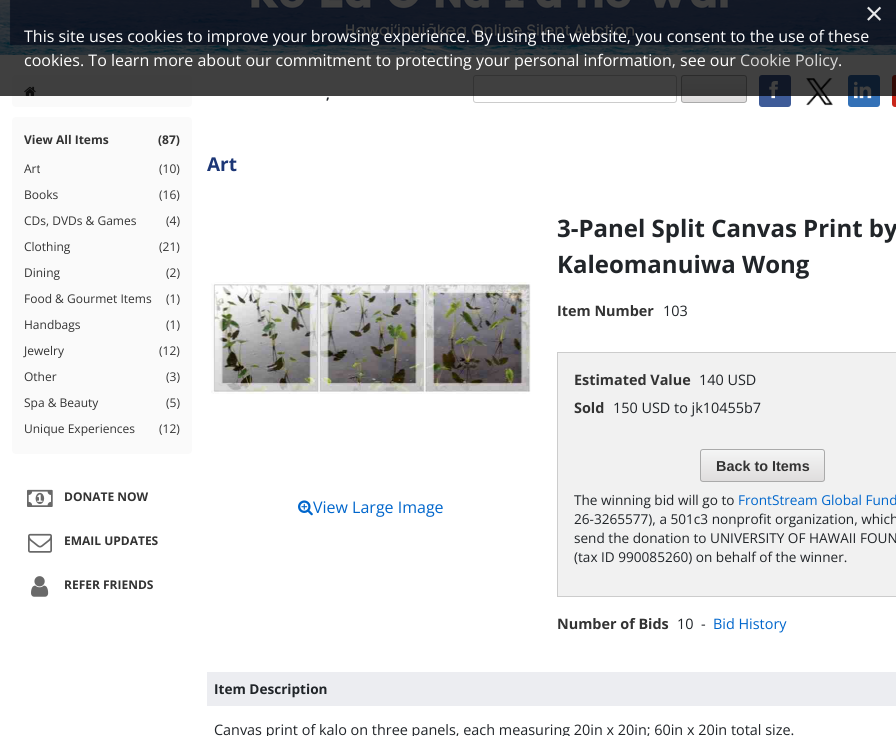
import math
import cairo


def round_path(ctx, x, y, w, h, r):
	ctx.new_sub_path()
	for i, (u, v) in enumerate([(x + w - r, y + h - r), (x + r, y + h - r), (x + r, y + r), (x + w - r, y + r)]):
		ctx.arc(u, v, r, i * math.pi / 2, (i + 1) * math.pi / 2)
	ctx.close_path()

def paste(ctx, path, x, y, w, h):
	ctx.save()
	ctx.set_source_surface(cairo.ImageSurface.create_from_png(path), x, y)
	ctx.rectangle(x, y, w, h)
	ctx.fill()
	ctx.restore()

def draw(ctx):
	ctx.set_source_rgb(1, 1, 1)
	ctx.paint()
	paste(ctx, 'media/1.png', 0, 0, 896, 55)
	ctx.set_source_rgb(0.98, 0.98, 0.98)
	round_path(ctx, 12, 75, 180, 32, 4)
	ctx.fill()
	paste(ctx, 'media/2.png', 24, 86, 12, 10)
	round_path(ctx, 473.5, 75.5, 203, 27, 2.5)
	ctx.set_source_rgb(0.8, 0.8, 0.8)
	ctx.set_line_width(1)
	ctx.stroke()
	ctx.save()
	round_path(ctx, 681, 75, 66, 28, 3)
	ctx.clip()
	gradient = cairo.LinearGradient(714, 76, 714, 102)
	gradient.add_color_stop_rgba(0, 0.957, 0.961, 0.961, 1)
	gradient.add_color_stop_rgba(1, 0.875, 0.867, 0.867, 1)
	ctx.set_source(gradient)
	ctx.rectangle(681, 76, 66, 26)
	ctx.fill()
	ctx.restore()
	round_path(ctx, 681.5, 75.5, 65, 27, 2.5)
	ctx.set_source_rgb(0.667, 0.667, 0.667)
	ctx.stroke()
	ctx.set_source_rgb(0.243, 0.357, 0.596)
	round_path(ctx, 759, 75, 32, 32, 3)
	ctx.fill()
	paste(ctx, 'media/6.png', 769, 81, 9, 18)
	paste(ctx, 'media/7.png', 806, 78, 27, 28)
	ctx.set_source_rgb(0.2, 0.443, 0.718)
	round_path(ctx, 848, 75, 32, 32, 3)
	ctx.fill()
	paste(ctx, 'media/8.png', 854, 81, 18, 18)
	ctx.set_source_rgb(0.788, 0.149, 0.098)
	round_path(ctx, 892, 75, 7, 32, 3)
	ctx.fill()
	ctx.set_source_rgba(0, 0, 0, 0.75)
	ctx.rectangle(0, 0, 896, 96)
	ctx.fill()
	ctx.select_font_face('Open Sans')
	ctx.set_font_size(32)
	ctx.set_source_rgb(0.906, 0.91, 0.914)
	ctx.move_to(865, 25)
	ctx.show_text('×')
	ctx.set_font_size(16)
	ctx.set_source_rgb(1, 1, 1)
	ctx.move_to(24, 42)
	ctx.show_text('This site uses cookies to improve your browsing experience. By using the website, you consent to the use of these')
	ctx.move_to(24, 66)
	ctx.show_text('cookies. To learn more about our commitment to protecting your personal information, see our')
	ctx.set_source_rgb(0.851, 0.851, 0.851)
	ctx.move_to(740, 66)
	ctx.show_text('Cookie Policy')
	ctx.set_source_rgb(1, 1, 1)
	ctx.move_to(838, 66)
	ctx.show_text('.')
	ctx.set_source_rgb(0.98, 0.98, 0.98)
	round_path(ctx, 12, 117, 180, 337, 4)
	ctx.fill()
	ctx.select_font_face('Open Sans', cairo.FONT_SLANT_NORMAL, cairo.FONT_WEIGHT_BOLD)
	ctx.set_font_size(12)
	ctx.set_source_rgb(0.2, 0.2, 0.2)
	ctx.move_to(24, 144)
	ctx.show_text('View All Items')
	ctx.move_to(158, 144)
	ctx.show_text('(87)')
	ctx.select_font_face('Open Sans')
	for x, y, s in [
		(24, 173, 'Art'),
		(159, 173, '(10)'),
		(24, 199, 'Books'),
		(159, 199, '(16)'),
		(24, 225, 'CDs, DVDs & Games'),
		(166, 225, '(4)'),
		(24, 251, 'Clothing'),
		(159, 251, '(21)'),
		(24, 277, 'Dining'),
		(166, 277, '(2)'),
		(24, 303, 'Food & Gourmet Items'),
		(166, 303, '(1)'),
		(24, 329, 'Handbags'),
		(166, 329, '(1)'),
		(24, 355, 'Jewelry'),
		(159, 355, '(12)'),
		(24, 381, 'Other'),
		(166, 381, '(3)'),
		(24, 407, 'Spa & Beauty'),
		(166, 407, '(5)'),
		(24, 433, 'Unique Experiences'),
		(159, 433, '(12)'),
	]:
		ctx.move_to(x, y)
		ctx.show_text(s)
	paste(ctx, 'media/3.png', 27, 489, 26, 18)
	ctx.select_font_face('Open Sans', cairo.FONT_SLANT_NORMAL, cairo.FONT_WEIGHT_BOLD)
	ctx.move_to(64, 501)
	ctx.show_text('DONATE NOW')
	paste(ctx, 'media/4.png', 28, 533, 24, 20)
	ctx.move_to(64, 545)
	ctx.show_text('EMAIL UPDATES')
	paste(ctx, 'media/5.png', 31, 576, 18, 21)
	ctx.move_to(64, 589)
	ctx.show_text('REFER FRIENDS')
	ctx.set_font_size(13)
	ctx.set_source_rgb(0.129, 0.145, 0.161)
	ctx.move_to(326, 99)
	ctx.show_text(',')
	ctx.set_font_size(19)
	ctx.set_source_rgb(0.11, 0.212, 0.463)
	ctx.move_to(207, 171)
	ctx.show_text('Art')
	paste(ctx, 'media/9.png', 211, 282, 320, 112)
	paste(ctx, 'media/10.png', 298, 500, 15, 16)
	ctx.select_font_face('Open Sans')
	ctx.set_font_size(16)
	ctx.set_source_rgb(0, 0.4, 0.8)
	ctx.move_to(313, 513)
	ctx.show_text('View Large Image')
	ctx.select_font_face('Open Sans', cairo.FONT_SLANT_NORMAL, cairo.FONT_WEIGHT_BOLD)
	ctx.set_font_size(24)
	ctx.set_source_rgb(0.129, 0.145, 0.161)
	ctx.move_to(557, 237)
	ctx.show_text('3-Panel Split Canvas Print by')
	ctx.move_to(557, 273)
	ctx.show_text('Kaleomanuiwa Wong')
	ctx.set_font_size(14.4)
	ctx.set_source_rgb(0.2, 0.2, 0.2)
	ctx.move_to(557, 316)
	ctx.show_text('Item Number')
	ctx.select_font_face('Open Sans')
	ctx.set_source_rgb(0.129, 0.145, 0.161)
	ctx.move_to(663, 316)
	ctx.show_text('103')
	ctx.set_source_rgb(0.945, 0.945, 0.945)
	ctx.rectangle(557.5, 352.5, 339, 244)
	ctx.fill_preserve()
	ctx.set_source_rgb(0.8, 0.8, 0.8)
	ctx.stroke()
	ctx.select_font_face('Open Sans', cairo.FONT_SLANT_NORMAL, cairo.FONT_WEIGHT_BOLD)
	ctx.set_source_rgb(0.2, 0.2, 0.2)
	ctx.move_to(574, 385)
	ctx.show_text('Estimated Value')
	ctx.select_font_face('Open Sans')
	ctx.set_source_rgb(0.129, 0.145, 0.161)
	ctx.move_to(699, 385)
	ctx.show_text('140 USD')
	ctx.select_font_face('Open Sans', cairo.FONT_SLANT_NORMAL, cairo.FONT_WEIGHT_BOLD)
	ctx.set_source_rgb(0.2, 0.2, 0.2)
	ctx.move_to(574, 413)
	ctx.show_text('Sold')
	ctx.select_font_face('Open Sans')
	ctx.set_source_rgb(0.129, 0.145, 0.161)
	ctx.move_to(613, 413)
	ctx.show_text('150 USD to jk10455b7')
	ctx.save()
	round_path(ctx, 700, 449, 125, 33, 3)
	ctx.clip()
	gradient = cairo.LinearGradient(763, 450, 763, 481)
	gradient.add_color_stop_rgba(0, 0.957, 0.961, 0.961, 1)
	gradient.add_color_stop_rgba(1, 0.875, 0.867, 0.867, 1)
	ctx.set_source(gradient)
	ctx.rectangle(700, 450, 125, 31)
	ctx.fill()
	ctx.restore()
	round_path(ctx, 700.5, 449.5, 124, 32, 2.5)
	ctx.set_source_rgb(0.667, 0.667, 0.667)
	ctx.stroke()
	ctx.select_font_face('Liberation Sans', cairo.FONT_SLANT_NORMAL, cairo.FONT_WEIGHT_BOLD)
	ctx.set_source_rgb(0.2, 0.2, 0.2)
	ctx.move_to(716, 471)
	ctx.show_text('Back to Items')
	ctx.select_font_face('Open Sans')
	ctx.set_font_size(13.6)
	ctx.set_source_rgb(0.129, 0.145, 0.161)
	ctx.move_to(574, 505)
	ctx.show_text('The winning bid will go to')
	ctx.set_source_rgb(0, 0.4, 0.8)
	ctx.move_to(738, 505)
	ctx.show_text('FrontStream Global Fund')
	ctx.set_source_rgb(0.129, 0.145, 0.161)
	for x, y, s in [
		(574, 524, '26-3265577), a 501c3 nonprofit organization, which'),
		(574, 543, 'send the donation to UNIVERSITY OF HAWAII FOUN'),
		(574, 562, '(tax ID 990085260) on behalf of the winner.'),
	]:
		ctx.move_to(x, y)
		ctx.show_text(s)
	ctx.select_font_face('Open Sans', cairo.FONT_SLANT_NORMAL, cairo.FONT_WEIGHT_BOLD)
	ctx.set_font_size(14.4)
	ctx.set_source_rgb(0.2, 0.2, 0.2)
	ctx.move_to(557, 629)
	ctx.show_text('Number of Bids')
	ctx.select_font_face('Open Sans')
	ctx.set_source_rgb(0.129, 0.145, 0.161)
	ctx.move_to(677, 629)
	ctx.show_text('10')
	ctx.move_to(701, 629)
	ctx.show_text('-')
	ctx.set_source_rgb(0, 0.4, 0.8)
	ctx.move_to(713, 629)
	ctx.show_text('Bid History')
	ctx.set_source_rgb(0.925, 0.929, 0.945)
	ctx.rectangle(207, 672, 689, 34)
	ctx.fill()
	ctx.select_font_face('Open Sans', cairo.FONT_SLANT_NORMAL, cairo.FONT_WEIGHT_BOLD)
	ctx.set_font_size(13.6)
	ctx.set_source_rgb(0.129, 0.145, 0.161)
	ctx.move_to(214, 694)
	ctx.show_text('Item Description')
	ctx.select_font_face('Open Sans')
	ctx.set_font_size(14.4)
	ctx.move_to(214, 735)
	ctx.show_text('Canvas print of kalo on three panels, each measuring 20in x 20in; 60in x 20in total size.')


surface = cairo.ImageSurface(cairo.FORMAT_RGB24, 896, 736)
ctx = cairo.Context(surface)
options = cairo.FontOptions()
options.set_hint_metrics(cairo.HINT_METRICS_OFF)
options.set_hint_style(cairo.HINT_STYLE_NONE)
ctx.set_font_options(options)
ctx.set_miter_limit(4)
draw(ctx)
surface.write_to_png('image.png')
